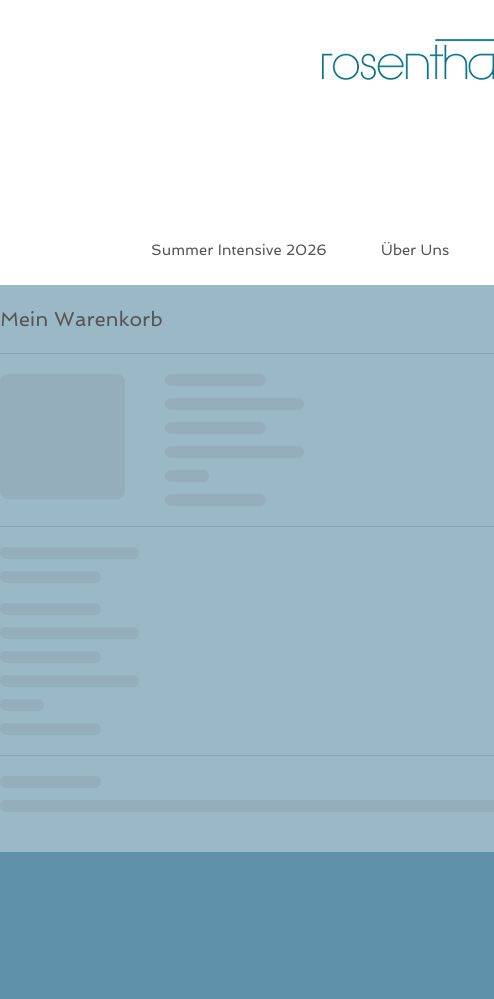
import math
import cairo


def round_path(ctx, x, y, w, h, r):
	ctx.new_sub_path()
	for i, (u, v) in enumerate([(x + w - r, y + h - r), (x + r, y + h - r), (x + r, y + r), (x + w - r, y + r)]):
		ctx.arc(u, v, r, i * math.pi / 2, (i + 1) * math.pi / 2)
	ctx.close_path()

def paste(ctx, path, x, y, w, h):
	ctx.save()
	ctx.set_source_surface(cairo.ImageSurface.create_from_png(path), x, y)
	ctx.rectangle(x, y, w, h)
	ctx.fill()
	ctx.restore()

def draw(ctx):
	ctx.set_source_rgb(0.608, 0.722, 0.78)
	ctx.paint()
	ctx.set_source_rgb(1, 1, 1)
	ctx.rectangle(0, 0, 494, 285)
	ctx.fill()
	paste(ctx, 'media/1.png', 322, 39, 172, 41)
	ctx.select_font_face('Spinnaker')
	ctx.set_font_size(15)
	ctx.set_source_rgb(0.333, 0.333, 0.333)
	ctx.move_to(151, 255)
	ctx.show_text('Summer Intensive 2026')
	ctx.move_to(381, 255)
	ctx.show_text('Über Uns')
	ctx.set_source_rgb(0.553, 0.643, 0.69)
	ctx.rectangle(0, 353, 494, 1)
	ctx.fill()
	ctx.set_font_size(20)
	ctx.set_source_rgb(0.333, 0.333, 0.333)
	ctx.move_to(0, 326)
	ctx.show_text('Mein Warenkorb')
	gradient = cairo.LinearGradient(0, 437, 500, 437)
	gradient.add_color_stop_rgba(0.25, 0.58, 0.682, 0.737, 1)
	gradient.add_color_stop_rgba(0.37, 0.553, 0.643, 0.69, 1)
	gradient.add_color_stop_rgba(0.63, 0.58, 0.682, 0.737, 1)
	ctx.set_source(gradient)
	round_path(ctx, 0, 374, 125, 125, 8)
	ctx.fill()
	gradient = cairo.LinearGradient(165, 380, 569, 380)
	gradient.add_color_stop_rgba(0.25, 0.58, 0.682, 0.737, 1)
	gradient.add_color_stop_rgba(0.37, 0.553, 0.643, 0.69, 1)
	gradient.add_color_stop_rgba(0.63, 0.58, 0.682, 0.737, 1)
	ctx.set_source(gradient)
	round_path(ctx, 165, 374, 101, 12, 6)
	ctx.fill()
	gradient = cairo.LinearGradient(165, 404, 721, 404)
	gradient.add_color_stop_rgba(0.25, 0.58, 0.682, 0.737, 1)
	gradient.add_color_stop_rgba(0.37, 0.553, 0.643, 0.69, 1)
	gradient.add_color_stop_rgba(0.63, 0.58, 0.682, 0.737, 1)
	ctx.set_source(gradient)
	round_path(ctx, 165, 398, 139, 12, 6)
	ctx.fill()
	gradient = cairo.LinearGradient(165, 428, 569, 428)
	gradient.add_color_stop_rgba(0.25, 0.58, 0.682, 0.737, 1)
	gradient.add_color_stop_rgba(0.37, 0.553, 0.643, 0.69, 1)
	gradient.add_color_stop_rgba(0.63, 0.58, 0.682, 0.737, 1)
	ctx.set_source(gradient)
	round_path(ctx, 165, 422, 101, 12, 6)
	ctx.fill()
	gradient = cairo.LinearGradient(165, 452, 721, 452)
	gradient.add_color_stop_rgba(0.25, 0.58, 0.682, 0.737, 1)
	gradient.add_color_stop_rgba(0.37, 0.553, 0.643, 0.69, 1)
	gradient.add_color_stop_rgba(0.63, 0.58, 0.682, 0.737, 1)
	ctx.set_source(gradient)
	round_path(ctx, 165, 446, 139, 12, 6)
	ctx.fill()
	gradient = cairo.LinearGradient(165, 476, 341, 476)
	gradient.add_color_stop_rgba(0.25, 0.58, 0.682, 0.737, 1)
	gradient.add_color_stop_rgba(0.37, 0.553, 0.643, 0.69, 1)
	gradient.add_color_stop_rgba(0.63, 0.58, 0.682, 0.737, 1)
	ctx.set_source(gradient)
	round_path(ctx, 165, 470, 44, 12, 6)
	ctx.fill()
	gradient = cairo.LinearGradient(165, 500, 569, 500)
	gradient.add_color_stop_rgba(0.25, 0.58, 0.682, 0.737, 1)
	gradient.add_color_stop_rgba(0.37, 0.553, 0.643, 0.69, 1)
	gradient.add_color_stop_rgba(0.63, 0.58, 0.682, 0.737, 1)
	ctx.set_source(gradient)
	round_path(ctx, 165, 494, 101, 12, 6)
	ctx.fill()
	ctx.set_source_rgb(0.553, 0.643, 0.69)
	ctx.rectangle(0, 526, 494, 1)
	ctx.fill()
	gradient = cairo.LinearGradient(0, 553, 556, 553)
	gradient.add_color_stop_rgba(0.25, 0.58, 0.682, 0.737, 1)
	gradient.add_color_stop_rgba(0.37, 0.553, 0.643, 0.69, 1)
	gradient.add_color_stop_rgba(0.63, 0.58, 0.682, 0.737, 1)
	ctx.set_source(gradient)
	round_path(ctx, 0, 547, 139, 12, 6)
	ctx.fill()
	gradient = cairo.LinearGradient(0, 577, 404, 577)
	gradient.add_color_stop_rgba(0.25, 0.58, 0.682, 0.737, 1)
	gradient.add_color_stop_rgba(0.37, 0.553, 0.643, 0.69, 1)
	gradient.add_color_stop_rgba(0.63, 0.58, 0.682, 0.737, 1)
	ctx.set_source(gradient)
	round_path(ctx, 0, 571, 101, 12, 6)
	ctx.fill()
	gradient = cairo.LinearGradient(0, 609, 404, 609)
	gradient.add_color_stop_rgba(0.25, 0.58, 0.682, 0.737, 1)
	gradient.add_color_stop_rgba(0.37, 0.553, 0.643, 0.69, 1)
	gradient.add_color_stop_rgba(0.63, 0.58, 0.682, 0.737, 1)
	ctx.set_source(gradient)
	round_path(ctx, 0, 603, 101, 12, 6)
	ctx.fill()
	gradient = cairo.LinearGradient(0, 633, 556, 633)
	gradient.add_color_stop_rgba(0.25, 0.58, 0.682, 0.737, 1)
	gradient.add_color_stop_rgba(0.37, 0.553, 0.643, 0.69, 1)
	gradient.add_color_stop_rgba(0.63, 0.58, 0.682, 0.737, 1)
	ctx.set_source(gradient)
	round_path(ctx, 0, 627, 139, 12, 6)
	ctx.fill()
	gradient = cairo.LinearGradient(0, 657, 404, 657)
	gradient.add_color_stop_rgba(0.25, 0.58, 0.682, 0.737, 1)
	gradient.add_color_stop_rgba(0.37, 0.553, 0.643, 0.69, 1)
	gradient.add_color_stop_rgba(0.63, 0.58, 0.682, 0.737, 1)
	ctx.set_source(gradient)
	round_path(ctx, 0, 651, 101, 12, 6)
	ctx.fill()
	gradient = cairo.LinearGradient(0, 681, 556, 681)
	gradient.add_color_stop_rgba(0.25, 0.58, 0.682, 0.737, 1)
	gradient.add_color_stop_rgba(0.37, 0.553, 0.643, 0.69, 1)
	gradient.add_color_stop_rgba(0.63, 0.58, 0.682, 0.737, 1)
	ctx.set_source(gradient)
	round_path(ctx, 0, 675, 139, 12, 6)
	ctx.fill()
	gradient = cairo.LinearGradient(0, 705, 176, 705)
	gradient.add_color_stop_rgba(0.25, 0.58, 0.682, 0.737, 1)
	gradient.add_color_stop_rgba(0.37, 0.553, 0.643, 0.69, 1)
	gradient.add_color_stop_rgba(0.63, 0.58, 0.682, 0.737, 1)
	ctx.set_source(gradient)
	round_path(ctx, 0, 699, 44, 12, 6)
	ctx.fill()
	gradient = cairo.LinearGradient(0, 729, 404, 729)
	gradient.add_color_stop_rgba(0.25, 0.58, 0.682, 0.737, 1)
	gradient.add_color_stop_rgba(0.37, 0.553, 0.643, 0.69, 1)
	gradient.add_color_stop_rgba(0.63, 0.58, 0.682, 0.737, 1)
	ctx.set_source(gradient)
	round_path(ctx, 0, 723, 101, 12, 6)
	ctx.fill()
	ctx.set_source_rgb(0.553, 0.643, 0.69)
	ctx.rectangle(0, 755, 494, 1)
	ctx.fill()
	gradient = cairo.LinearGradient(0, 782, 404, 782)
	gradient.add_color_stop_rgba(0.25, 0.58, 0.682, 0.737, 1)
	gradient.add_color_stop_rgba(0.37, 0.553, 0.643, 0.69, 1)
	gradient.add_color_stop_rgba(0.63, 0.58, 0.682, 0.737, 1)
	ctx.set_source(gradient)
	round_path(ctx, 0, 776, 101, 12, 6)
	ctx.fill()
	gradient = cairo.LinearGradient(0, 806, 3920, 806)
	gradient.add_color_stop_rgba(0.25, 0.58, 0.682, 0.737, 1)
	gradient.add_color_stop_rgba(0.37, 0.553, 0.643, 0.69, 1)
	gradient.add_color_stop_rgba(0.63, 0.58, 0.682, 0.737, 1)
	ctx.set_source(gradient)
	round_path(ctx, 0, 800, 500, 12, 6)
	ctx.fill()
	ctx.set_source_rgb(0.376, 0.569, 0.671)
	ctx.rectangle(0, 852, 494, 147)
	ctx.fill()


surface = cairo.ImageSurface(cairo.FORMAT_RGB24, 494, 999)
ctx = cairo.Context(surface)
options = cairo.FontOptions()
options.set_hint_metrics(cairo.HINT_METRICS_OFF)
options.set_hint_style(cairo.HINT_STYLE_NONE)
ctx.set_font_options(options)
ctx.set_miter_limit(4)
draw(ctx)
surface.write_to_png('image.png')
